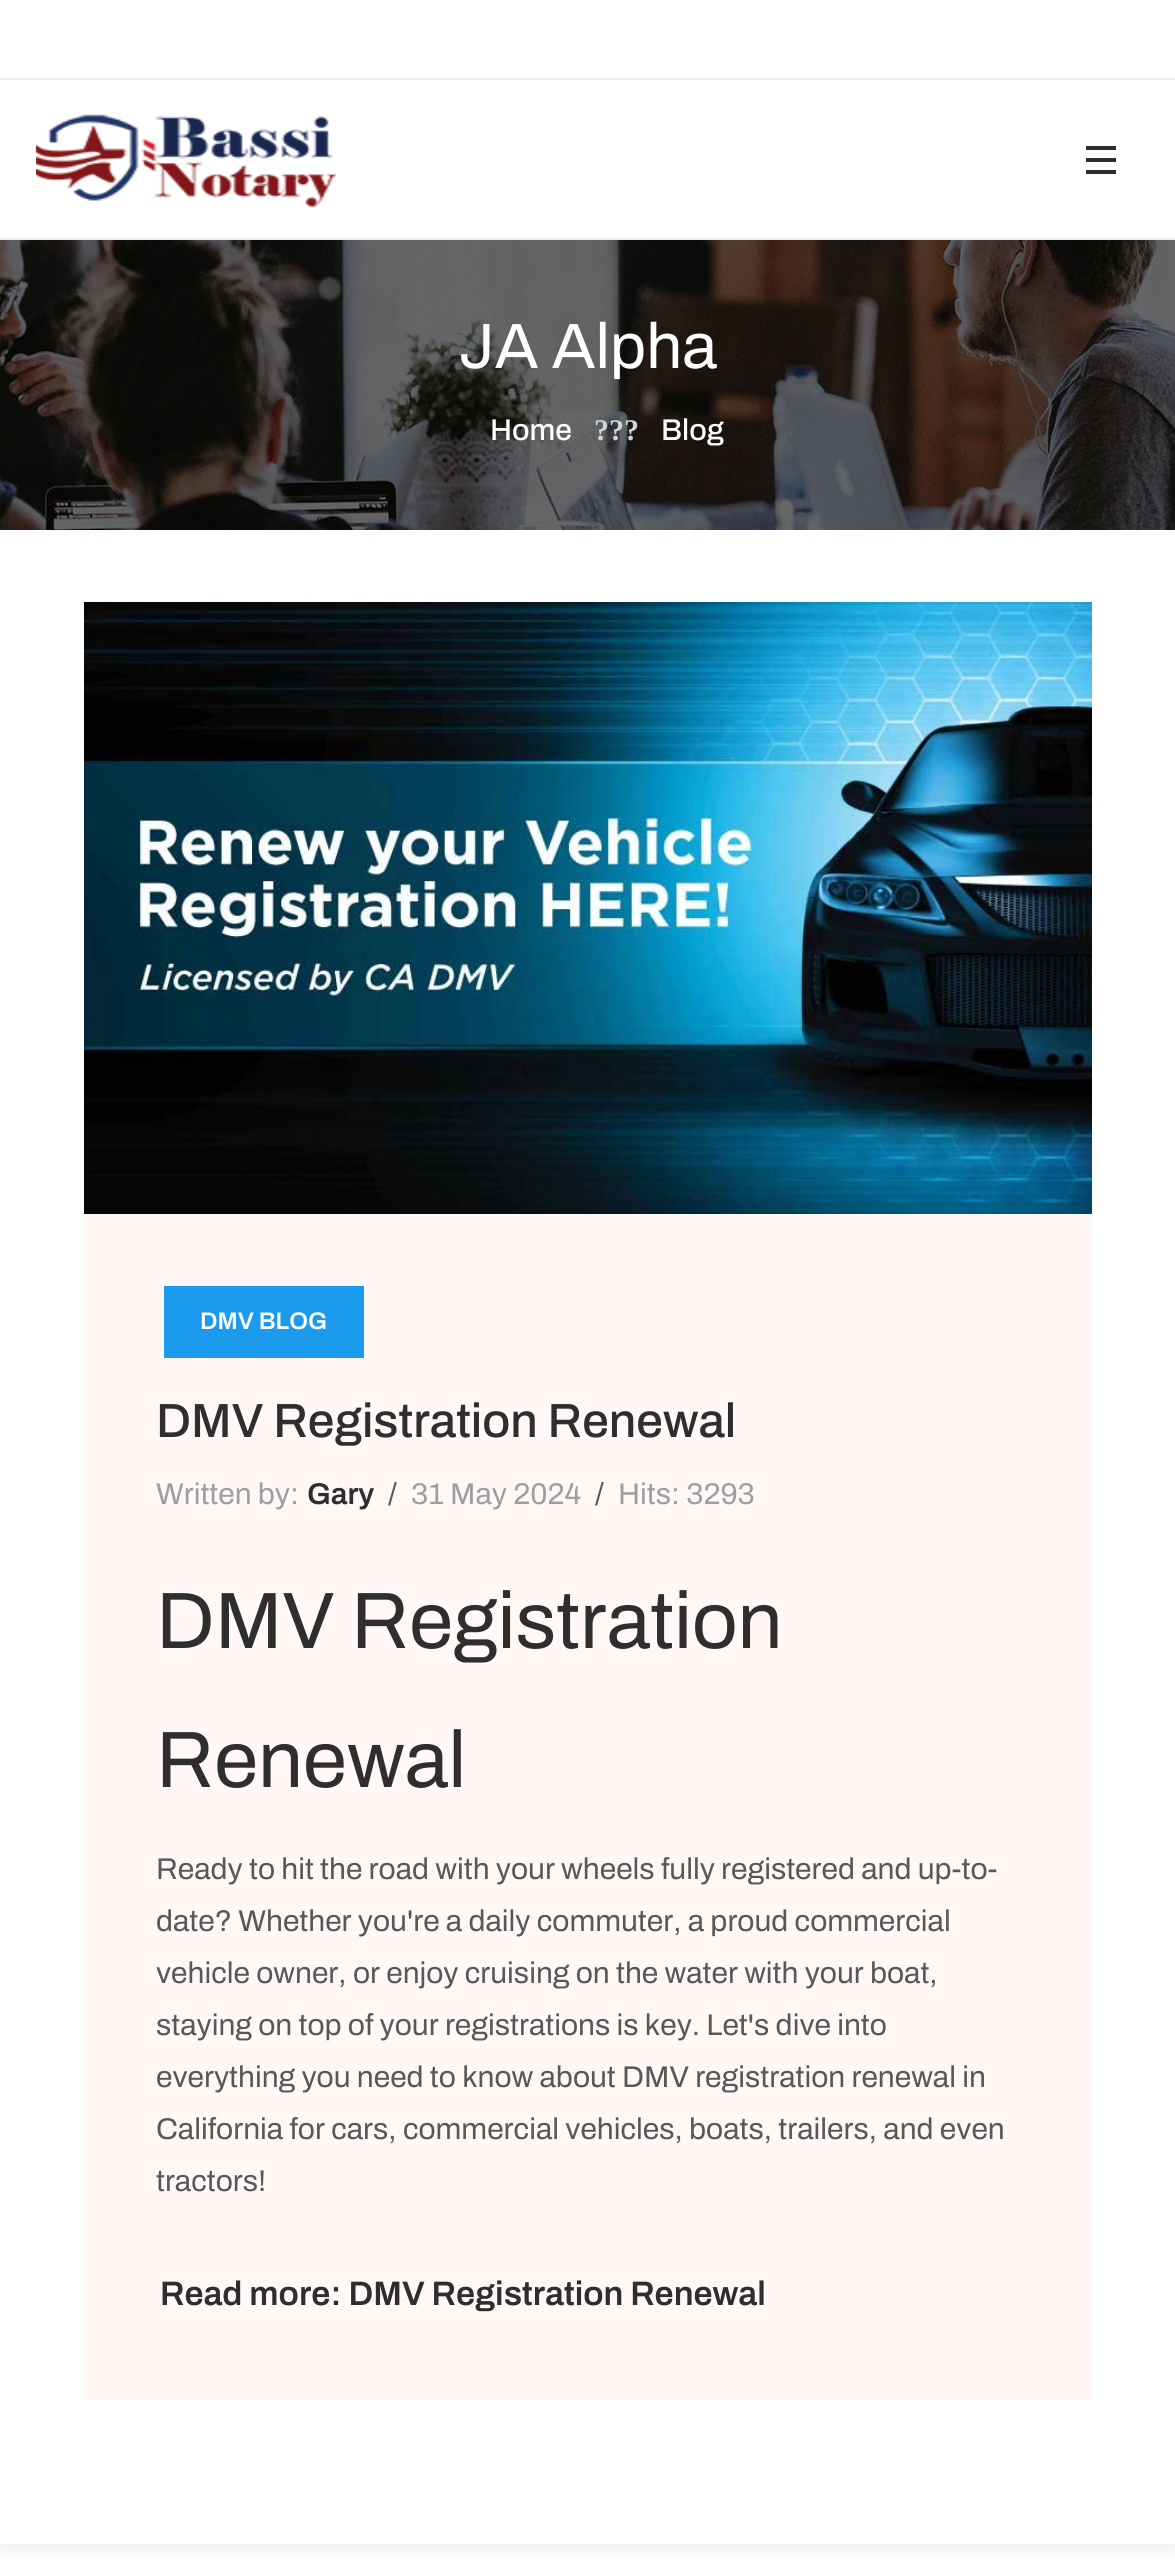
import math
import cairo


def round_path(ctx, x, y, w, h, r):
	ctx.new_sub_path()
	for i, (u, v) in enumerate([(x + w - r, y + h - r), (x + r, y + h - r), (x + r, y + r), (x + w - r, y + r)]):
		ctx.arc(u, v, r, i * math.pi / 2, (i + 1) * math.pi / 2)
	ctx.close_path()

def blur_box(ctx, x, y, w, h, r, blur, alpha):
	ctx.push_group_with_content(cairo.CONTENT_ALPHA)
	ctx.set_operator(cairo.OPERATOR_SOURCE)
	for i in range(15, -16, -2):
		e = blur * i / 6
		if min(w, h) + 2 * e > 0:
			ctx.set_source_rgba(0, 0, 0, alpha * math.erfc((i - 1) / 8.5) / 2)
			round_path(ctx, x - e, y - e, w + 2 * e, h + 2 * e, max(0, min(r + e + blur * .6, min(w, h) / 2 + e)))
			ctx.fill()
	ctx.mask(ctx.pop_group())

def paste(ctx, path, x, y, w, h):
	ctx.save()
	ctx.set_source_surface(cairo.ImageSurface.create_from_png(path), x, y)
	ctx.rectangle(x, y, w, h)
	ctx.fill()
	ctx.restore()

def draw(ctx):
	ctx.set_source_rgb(1, 1, 1)
	ctx.paint()
	ctx.save()
	ctx.rectangle(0, 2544, 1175, 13)
	ctx.clip()
	ctx.set_source_rgb(0, 0, 0)
	blur_box(ctx, 0, 0, 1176, 2544, 0, 15, 0.1)
	ctx.restore()
	ctx.set_source_rgb(0.922, 0.922, 0.922)
	ctx.rectangle(0, 238, 1175, 2)
	ctx.fill()
	ctx.rectangle(0, 78, 1175, 2)
	ctx.fill()
	paste(ctx, 'media/1.png', 36, 114, 300, 94)
	ctx.set_source_rgb(0.18, 0.18, 0.18)
	ctx.rectangle(1086, 158, 30, 4)
	ctx.rectangle(1086, 146, 30, 4)
	ctx.rectangle(1086, 170, 30, 4)
	ctx.fill()
	paste(ctx, 'media/2.png', 0, 240, 1175, 290)
	ctx.select_font_face('Archivo')
	ctx.set_font_size(64)
	ctx.set_source_rgb(1, 1, 1)
	ctx.move_to(459, 368)
	ctx.show_text('JA Alpha')
	ctx.select_font_face('Archivo Medium')
	ctx.set_font_size(30)
	ctx.move_to(490, 440)
	ctx.show_text('Home')
	ctx.select_font_face('Liberation Serif', cairo.FONT_SLANT_NORMAL, cairo.FONT_WEIGHT_BOLD)
	ctx.set_source_rgb(0.808, 0.831, 0.855)
	ctx.move_to(594, 440)
	ctx.show_text('???')
	ctx.select_font_face('Archivo Medium')
	ctx.set_source_rgb(1, 1, 1)
	ctx.move_to(661, 440)
	ctx.show_text('Blog')
	ctx.set_source_rgb(1, 0.969, 0.961)
	ctx.rectangle(84, 1214, 1008, 1186)
	ctx.fill()
	paste(ctx, 'media/3.png', 84, 602, 1008, 612)
	ctx.set_source_rgb(0.102, 0.608, 0.929)
	ctx.rectangle(164, 1286, 200, 72)
	ctx.fill()
	ctx.select_font_face('Archivo SemiBold')
	ctx.set_font_size(24)
	ctx.set_source_rgb(1, 1, 1)
	ctx.move_to(200, 1329)
	ctx.show_text('DMV BLOG')
	ctx.select_font_face('Archivo Medium')
	ctx.set_font_size(48)
	ctx.set_source_rgb(0.18, 0.18, 0.18)
	ctx.move_to(156, 1437)
	ctx.show_text('DMV Registration Renewal')
	ctx.select_font_face('Archivo')
	ctx.set_font_size(30)
	ctx.set_source_rgb(0.62, 0.62, 0.62)
	ctx.move_to(156, 1504)
	ctx.show_text('Written by:')
	ctx.select_font_face('Archivo SemiBold')
	ctx.set_source_rgb(0.18, 0.18, 0.18)
	ctx.move_to(307, 1504)
	ctx.show_text('Gary')
	ctx.select_font_face('Archivo')
	ctx.set_source_rgb(0.345, 0.345, 0.345)
	ctx.move_to(388, 1504)
	ctx.show_text('/')
	ctx.set_source_rgb(0.62, 0.62, 0.62)
	ctx.move_to(411, 1504)
	ctx.show_text('31 May 2024')
	ctx.set_source_rgb(0.345, 0.345, 0.345)
	ctx.move_to(595, 1504)
	ctx.show_text('/')
	ctx.set_source_rgb(0.62, 0.62, 0.62)
	ctx.move_to(618, 1504)
	ctx.show_text('Hits: 3293')
	ctx.set_font_size(80)
	ctx.set_source_rgb(0.18, 0.18, 0.18)
	ctx.move_to(156, 1648)
	ctx.show_text('DMV Registration')
	ctx.move_to(156, 1787)
	ctx.show_text('Renewal')
	ctx.set_font_size(30)
	ctx.set_source_rgb(0.345, 0.345, 0.345)
	for x, y, s in [
		(156, 1879, 'Ready to hit the road with your wheels fully registered and up-to-'),
		(156, 1931, 'date? Whether you\'re a daily commuter, a proud commercial'),
		(156, 1983, 'vehicle owner, or enjoy cruising on the water with your boat,'),
		(156, 2035, 'staying on top of your registrations is key. Let\'s dive into'),
		(156, 2087, 'everything you need to know about DMV registration renewal in'),
		(156, 2139, 'California for cars, commercial vehicles, boats, trailers, and even'),
		(156, 2191, 'tractors!'),
	]:
		ctx.move_to(x, y)
		ctx.show_text(s)
	ctx.select_font_face('Archivo SemiBold')
	ctx.set_font_size(34)
	ctx.set_source_rgb(0.18, 0.18, 0.18)
	ctx.move_to(160, 2305)
	ctx.show_text('Read more: DMV Registration Renewal')


surface = cairo.ImageSurface(cairo.FORMAT_RGB24, 1175, 2573)
ctx = cairo.Context(surface)
options = cairo.FontOptions()
options.set_hint_metrics(cairo.HINT_METRICS_OFF)
options.set_hint_style(cairo.HINT_STYLE_NONE)
ctx.set_font_options(options)
ctx.set_miter_limit(4)
draw(ctx)
surface.write_to_png('image.png')
